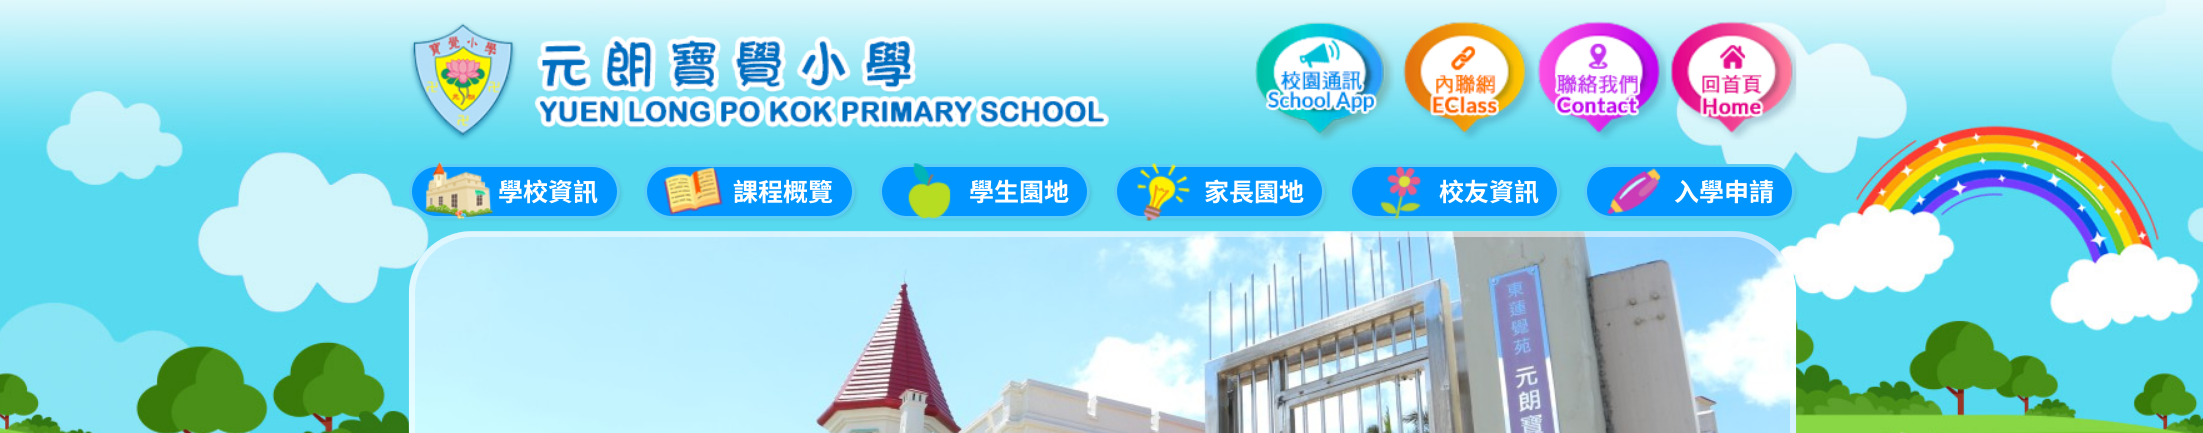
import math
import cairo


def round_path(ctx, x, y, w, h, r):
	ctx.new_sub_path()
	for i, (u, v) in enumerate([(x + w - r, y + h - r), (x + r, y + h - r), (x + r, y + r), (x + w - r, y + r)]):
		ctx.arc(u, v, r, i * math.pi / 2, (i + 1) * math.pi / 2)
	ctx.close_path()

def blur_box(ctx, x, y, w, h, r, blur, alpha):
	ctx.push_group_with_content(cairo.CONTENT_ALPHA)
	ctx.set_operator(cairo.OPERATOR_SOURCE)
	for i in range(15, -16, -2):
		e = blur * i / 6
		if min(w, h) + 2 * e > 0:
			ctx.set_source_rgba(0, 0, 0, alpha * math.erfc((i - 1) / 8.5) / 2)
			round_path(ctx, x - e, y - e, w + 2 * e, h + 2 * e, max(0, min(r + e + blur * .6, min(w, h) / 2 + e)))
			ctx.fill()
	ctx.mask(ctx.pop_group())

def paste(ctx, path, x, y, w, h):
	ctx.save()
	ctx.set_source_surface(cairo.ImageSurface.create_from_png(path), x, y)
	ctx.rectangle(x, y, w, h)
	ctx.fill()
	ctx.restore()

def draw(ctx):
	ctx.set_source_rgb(1, 1, 1)
	ctx.paint()
	paste(ctx, 'media/1.png', 0, 0, 2203, 433)
	paste(ctx, 'media/2.png', 409, 23, 700, 118)
	paste(ctx, 'media/3.png', 1255, 22, 139, 119)
	paste(ctx, 'media/4.png', 1403, 21, 132, 119)
	paste(ctx, 'media/5.png', 1537, 21, 130, 119)
	paste(ctx, 'media/6.png', 1671, 21, 126, 119)
	ctx.set_source_rgb(0, 0, 0)
	blur_box(ctx, 416, 171, 202, 45, 22.5, 3, 0.33)
	ctx.set_source_rgb(0.004, 0.584, 1)
	round_path(ctx, 410.5, 165.5, 208, 52, 26)
	ctx.fill_preserve()
	ctx.set_source_rgb(0.361, 0.808, 0.961)
	ctx.set_line_width(3)
	ctx.stroke()
	paste(ctx, 'media/7.png', 424, 161, 69, 59)
	ctx.select_font_face('Noto Sans SC', cairo.FONT_SLANT_NORMAL, cairo.FONT_WEIGHT_BOLD)
	ctx.set_font_size(25)
	ctx.set_source_rgb(1, 1, 1)
	ctx.move_to(498, 201)
	ctx.show_text('學校資訊')
	ctx.set_source_rgb(0, 0, 0)
	blur_box(ctx, 651, 171, 202, 45, 22.5, 3, 0.33)
	ctx.set_source_rgb(0.004, 0.584, 1)
	round_path(ctx, 645.5, 165.5, 208, 52, 26)
	ctx.fill_preserve()
	ctx.set_source_rgb(0.361, 0.808, 0.961)
	ctx.stroke()
	paste(ctx, 'media/8.png', 663, 166, 61, 50)
	ctx.set_source_rgb(1, 1, 1)
	ctx.move_to(733, 201)
	ctx.show_text('課程概覽')
	ctx.set_source_rgb(0, 0, 0)
	blur_box(ctx, 886, 171, 202, 45, 22.5, 3, 0.33)
	ctx.set_source_rgb(0.004, 0.584, 1)
	round_path(ctx, 880.5, 165.5, 208, 52, 26)
	ctx.fill_preserve()
	ctx.set_source_rgb(0.361, 0.808, 0.961)
	ctx.stroke()
	paste(ctx, 'media/9.png', 908, 163, 43, 56)
	ctx.set_source_rgb(1, 1, 1)
	ctx.move_to(969, 201)
	ctx.show_text('學生園地')
	ctx.set_source_rgb(0, 0, 0)
	blur_box(ctx, 1121, 171, 202, 45, 22.5, 3, 0.33)
	ctx.set_source_rgb(0.004, 0.584, 1)
	round_path(ctx, 1115.5, 165.5, 208, 52, 26)
	ctx.fill_preserve()
	ctx.set_source_rgb(0.361, 0.808, 0.961)
	ctx.stroke()
	paste(ctx, 'media/10.png', 1137, 163, 54, 58)
	ctx.set_source_rgb(1, 1, 1)
	ctx.move_to(1204, 201)
	ctx.show_text('家長園地')
	ctx.set_source_rgb(0, 0, 0)
	blur_box(ctx, 1356, 171, 202, 45, 22.5, 3, 0.33)
	ctx.set_source_rgb(0.004, 0.584, 1)
	round_path(ctx, 1350.5, 165.5, 208, 52, 26)
	ctx.fill_preserve()
	ctx.set_source_rgb(0.361, 0.808, 0.961)
	ctx.stroke()
	paste(ctx, 'media/11.png', 1380, 166, 42, 55)
	ctx.set_source_rgb(1, 1, 1)
	ctx.move_to(1439, 201)
	ctx.show_text('校友資訊')
	ctx.set_source_rgb(0, 0, 0)
	blur_box(ctx, 1591, 171, 202, 45, 22.5, 3, 0.33)
	ctx.set_source_rgb(0.004, 0.584, 1)
	round_path(ctx, 1585.5, 165.5, 208, 52, 26)
	ctx.fill_preserve()
	ctx.set_source_rgb(0.361, 0.808, 0.961)
	ctx.stroke()
	paste(ctx, 'media/12.png', 1607, 168, 54, 47)
	ctx.set_source_rgb(1, 1, 1)
	ctx.move_to(1674, 201)
	ctx.show_text('入學申請')
	paste(ctx, 'media/13.png', 408, 231, 1389, 202)
	ctx.new_path()
	ctx.move_to(472, 234)
	ctx.line_to(1733, 234)
	ctx.curve_to(1766, 234, 1793, 261, 1793, 294)
	ctx.line_to(1793, 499)
	ctx.line_to(412, 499)
	ctx.line_to(412, 294)
	ctx.curve_to(412, 261, 439, 234, 472, 234)
	ctx.close_path()
	ctx.set_source_rgba(1, 1, 1, 0.5)
	ctx.set_line_width(6)
	ctx.stroke()


surface = cairo.ImageSurface(cairo.FORMAT_RGB24, 2203, 433)
ctx = cairo.Context(surface)
options = cairo.FontOptions()
options.set_hint_metrics(cairo.HINT_METRICS_OFF)
options.set_hint_style(cairo.HINT_STYLE_NONE)
ctx.set_font_options(options)
ctx.set_miter_limit(4)
draw(ctx)
surface.write_to_png('image.png')
